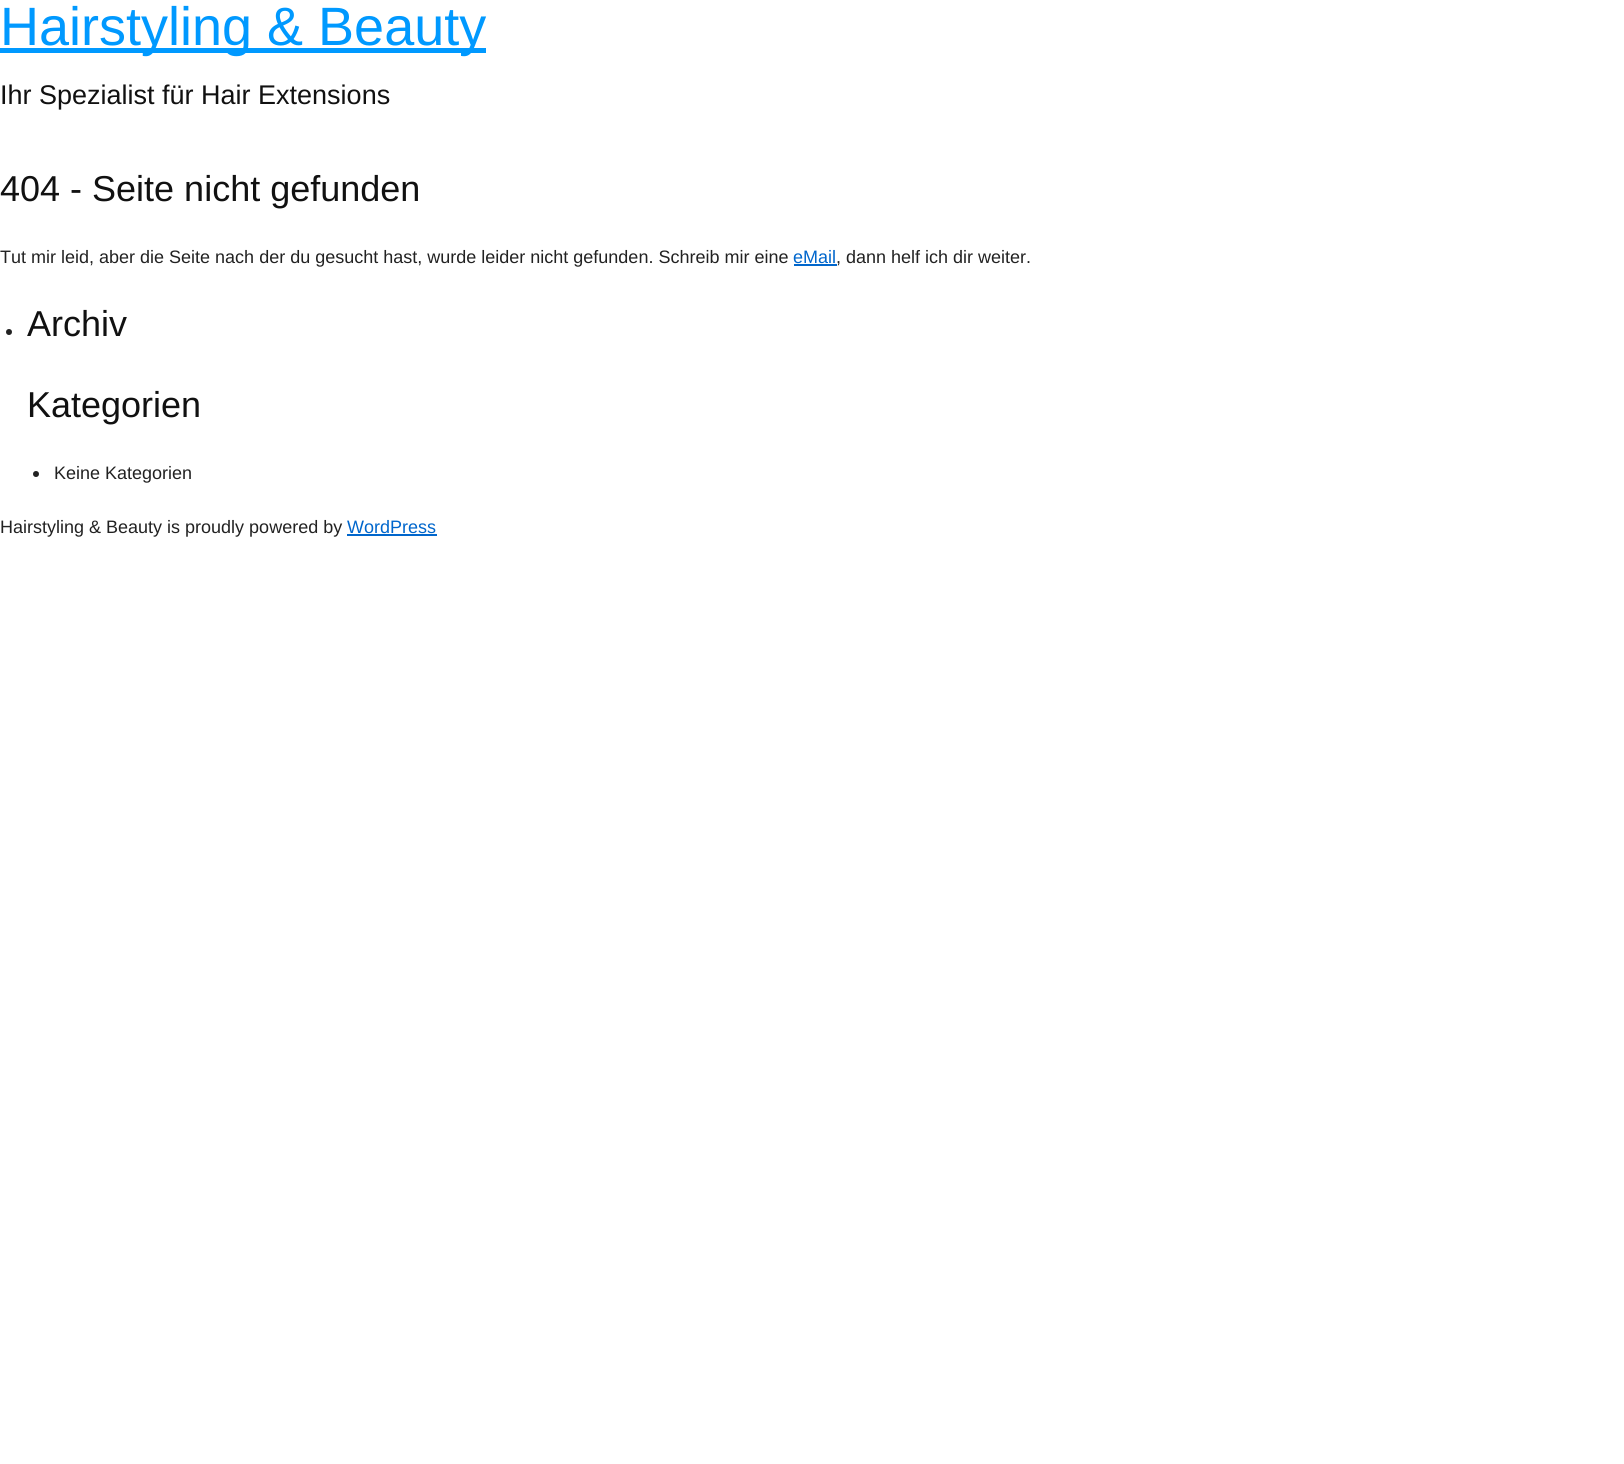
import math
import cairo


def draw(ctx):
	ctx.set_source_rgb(1, 1, 1)
	ctx.paint()
	ctx.set_source_rgb(0, 0.6, 1)
	ctx.rectangle(0, 48, 486, 5)
	ctx.fill()
	ctx.select_font_face('Liberation Sans')
	ctx.set_font_size(54)
	ctx.move_to(0, 45)
	ctx.show_text('Hairstyling & Beauty')
	ctx.set_font_size(27)
	ctx.set_source_rgb(0.067, 0.067, 0.067)
	ctx.move_to(0, 104)
	ctx.show_text('Ihr Spezialist für Hair Extensions')
	ctx.set_font_size(36)
	ctx.move_to(0, 201)
	ctx.show_text('404 - Seite nicht gefunden')
	ctx.set_font_size(18)
	ctx.set_source_rgb(0.133, 0.133, 0.133)
	ctx.move_to(0, 263)
	ctx.show_text('Tut mir leid, aber die Seite nach der du gesucht hast, wurde leider nicht gefunden. Schreib mir eine')
	ctx.set_source_rgb(0, 0.4, 0.8)
	ctx.move_to(793, 263)
	ctx.show_text('eMail')
	ctx.rectangle(794, 264, 43, 2)
	ctx.fill()
	ctx.set_source_rgb(0.133, 0.133, 0.133)
	ctx.move_to(836, 263)
	ctx.show_text(', dann helf ich dir weiter.')
	ctx.new_path()
	ctx.arc(9, 332, 3, 0, 2 * math.pi)
	ctx.fill()
	ctx.set_font_size(36)
	ctx.set_source_rgb(0.067, 0.067, 0.067)
	ctx.move_to(27, 336)
	ctx.show_text('Archiv')
	ctx.move_to(27, 417)
	ctx.show_text('Kategorien')
	ctx.set_source_rgb(0.133, 0.133, 0.133)
	ctx.new_path()
	ctx.arc(36, 474, 3, 0, 2 * math.pi)
	ctx.fill()
	ctx.set_font_size(18)
	ctx.move_to(54, 479)
	ctx.show_text('Keine Kategorien')
	ctx.move_to(0, 533)
	ctx.show_text('Hairstyling & Beauty is proudly powered by')
	ctx.set_source_rgb(0, 0.4, 0.8)
	ctx.move_to(347, 533)
	ctx.show_text('WordPress')
	ctx.rectangle(347, 534, 90, 2)
	ctx.fill()


surface = cairo.ImageSurface(cairo.FORMAT_RGB24, 1624, 1464)
ctx = cairo.Context(surface)
options = cairo.FontOptions()
options.set_hint_metrics(cairo.HINT_METRICS_OFF)
options.set_hint_style(cairo.HINT_STYLE_NONE)
ctx.set_font_options(options)
ctx.set_miter_limit(4)
draw(ctx)
surface.write_to_png('image.png')
